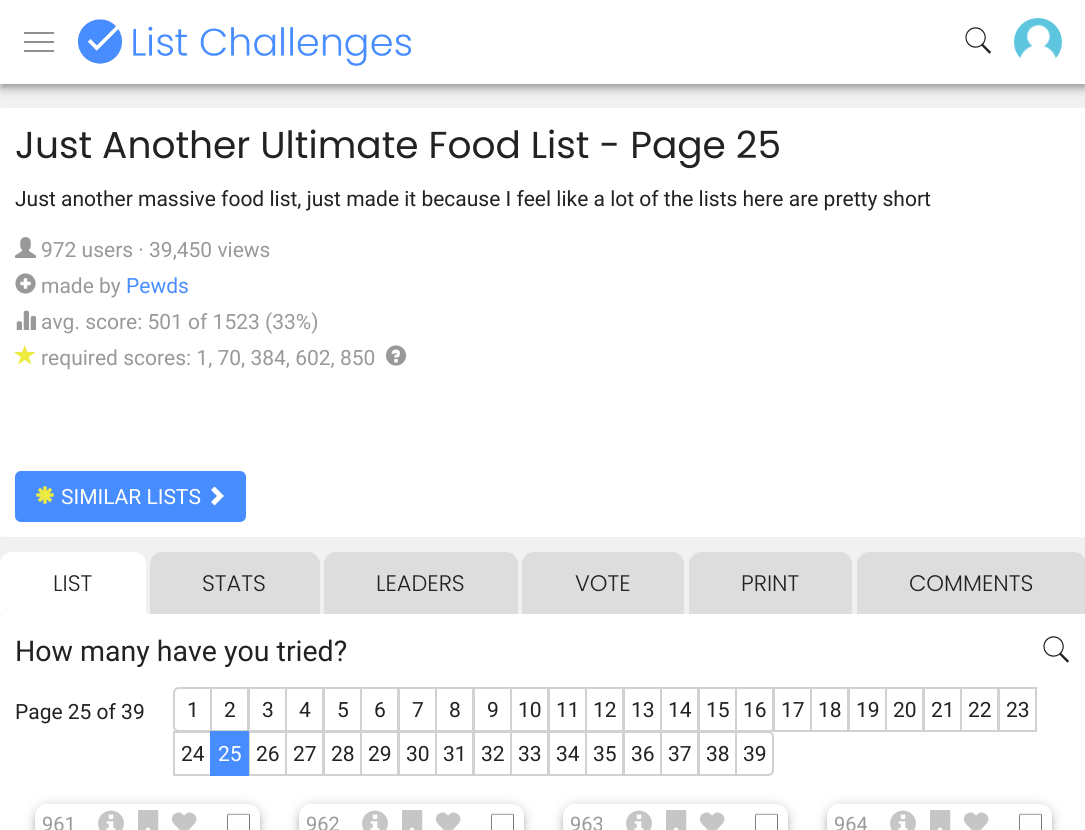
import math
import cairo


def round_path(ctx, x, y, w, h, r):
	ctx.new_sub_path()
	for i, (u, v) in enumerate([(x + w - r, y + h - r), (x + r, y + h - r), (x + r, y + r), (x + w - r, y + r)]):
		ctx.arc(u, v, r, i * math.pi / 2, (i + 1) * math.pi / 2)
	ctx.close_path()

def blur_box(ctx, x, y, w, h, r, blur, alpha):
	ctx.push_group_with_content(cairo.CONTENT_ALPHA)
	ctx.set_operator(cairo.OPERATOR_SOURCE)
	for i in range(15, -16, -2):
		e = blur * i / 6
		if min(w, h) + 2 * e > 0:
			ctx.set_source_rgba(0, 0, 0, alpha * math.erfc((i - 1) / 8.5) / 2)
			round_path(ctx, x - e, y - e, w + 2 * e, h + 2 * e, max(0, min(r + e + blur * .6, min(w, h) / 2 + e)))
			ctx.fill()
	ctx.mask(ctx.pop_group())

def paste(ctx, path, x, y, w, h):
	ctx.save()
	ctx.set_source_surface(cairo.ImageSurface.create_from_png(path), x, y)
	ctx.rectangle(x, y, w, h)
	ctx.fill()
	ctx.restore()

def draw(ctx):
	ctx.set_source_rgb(0.945, 0.945, 0.945)
	ctx.paint()
	ctx.set_source_rgb(0, 0, 0)
	blur_box(ctx, 2, 5, 1083, 81, 0, 3, 0.2)
	ctx.set_source_rgb(1, 1, 1)
	round_path(ctx, 0, 108, 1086, 429, 3)
	ctx.fill()
	ctx.set_source_rgb(0, 0, 0)
	blur_box(ctx, 0, 2, 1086, 84, 0, 7.5, 0.12)
	blur_box(ctx, 0, 6, 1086, 84, 0, 4, 0.14)
	ctx.set_source_rgb(1, 1, 1)
	ctx.rectangle(0, 0, 1085, 84)
	ctx.fill()
	paste(ctx, 'media/1.png', 24, 32, 30, 20)
	paste(ctx, 'media/2.png', 78, 19, 333, 47)
	paste(ctx, 'media/3.png', 965, 27, 26, 27)
	paste(ctx, 'media/4.png', 1014, 18, 48, 41)
	ctx.select_font_face('Poppins')
	ctx.set_font_size(37.5)
	ctx.set_source_rgb(0.133, 0.133, 0.133)
	ctx.move_to(15, 158)
	ctx.show_text('Just Another Ultimate Food List - Page 25')
	ctx.select_font_face('Roboto')
	ctx.set_font_size(21)
	ctx.move_to(15, 206)
	ctx.show_text('Just another massive food list, just made it because I feel like a lot of the lists here are pretty short')
	paste(ctx, 'media/5.png', 15, 237, 21, 21)
	ctx.set_source_rgb(0.6, 0.6, 0.6)
	ctx.move_to(41, 257)
	ctx.show_text('972 users · 39,450 views')
	paste(ctx, 'media/6.png', 15, 273, 21, 21)
	ctx.move_to(41, 293)
	ctx.show_text('made by')
	ctx.set_source_rgb(0.282, 0.553, 1)
	ctx.move_to(126, 293)
	ctx.show_text('Pewds')
	paste(ctx, 'media/7.png', 16, 310, 20, 20)
	ctx.set_source_rgb(0.6, 0.6, 0.6)
	ctx.move_to(41, 329)
	ctx.show_text('avg. score: 501 of 1523 (33%)')
	paste(ctx, 'media/8.png', 14, 345, 21, 20)
	ctx.move_to(41, 365)
	ctx.show_text('required scores: 1, 70, 384, 602, 850')
	paste(ctx, 'media/9.png', 385, 345, 22, 21)
	ctx.set_source_rgb(0.282, 0.553, 1)
	round_path(ctx, 16, 472, 229, 49, 5)
	ctx.fill_preserve()
	ctx.stroke()
	paste(ctx, 'media/10.png', 36, 486, 18, 18)
	ctx.set_source_rgb(1, 1, 1)
	ctx.move_to(61, 504)
	ctx.show_text('SIMILAR LISTS')
	ctx.new_path()
	ctx.move_to(224, 496)
	ctx.line_to(214.5, 505.5)
	ctx.line_to(211, 502)
	ctx.line_to(217, 496)
	ctx.line_to(211, 490)
	ctx.line_to(214.5, 486.5)
	ctx.close_path()
	ctx.fill()
	ctx.new_path()
	ctx.move_to(12, 552)
	ctx.line_to(134, 552)
	ctx.curve_to(140.5, 552, 146, 557.5, 146, 564)
	ctx.line_to(146, 614)
	ctx.line_to(0, 614)
	ctx.line_to(0, 564)
	ctx.curve_to(0, 557.5, 5.5, 552, 12, 552)
	ctx.close_path()
	ctx.fill()
	ctx.select_font_face('Poppins Light')
	ctx.set_font_size(22.5)
	ctx.set_source_rgb(0.133, 0.133, 0.133)
	ctx.move_to(53, 591)
	ctx.show_text('LIST')
	ctx.set_source_rgb(0.867, 0.867, 0.867)
	ctx.new_path()
	ctx.move_to(162, 552)
	ctx.line_to(308, 552)
	ctx.curve_to(314.5, 552, 320, 557.5, 320, 564)
	ctx.line_to(320, 614)
	ctx.line_to(150, 614)
	ctx.line_to(150, 564)
	ctx.curve_to(150, 557.5, 155.5, 552, 162, 552)
	ctx.close_path()
	ctx.fill()
	ctx.set_source_rgb(0.133, 0.133, 0.133)
	ctx.move_to(202, 591)
	ctx.show_text('STATS')
	ctx.set_source_rgb(0.867, 0.867, 0.867)
	ctx.new_path()
	ctx.move_to(336, 552)
	ctx.line_to(506, 552)
	ctx.curve_to(512.5, 552, 518, 557.5, 518, 564)
	ctx.line_to(518, 614)
	ctx.line_to(324, 614)
	ctx.line_to(324, 564)
	ctx.curve_to(324, 557.5, 329.5, 552, 336, 552)
	ctx.close_path()
	ctx.fill()
	ctx.set_source_rgb(0.133, 0.133, 0.133)
	ctx.move_to(376, 591)
	ctx.show_text('LEADERS')
	ctx.set_source_rgb(0.867, 0.867, 0.867)
	ctx.new_path()
	ctx.move_to(534, 552)
	ctx.line_to(672, 552)
	ctx.curve_to(678.5, 552, 684, 557.5, 684, 564)
	ctx.line_to(684, 614)
	ctx.line_to(522, 614)
	ctx.line_to(522, 564)
	ctx.curve_to(522, 557.5, 527.5, 552, 534, 552)
	ctx.close_path()
	ctx.fill()
	ctx.set_source_rgb(0.133, 0.133, 0.133)
	ctx.move_to(575, 591)
	ctx.show_text('VOTE')
	ctx.set_source_rgb(0.867, 0.867, 0.867)
	ctx.new_path()
	ctx.move_to(701, 552)
	ctx.line_to(840, 552)
	ctx.curve_to(846.5, 552, 852, 557.5, 852, 564)
	ctx.line_to(852, 614)
	ctx.line_to(689, 614)
	ctx.line_to(689, 564)
	ctx.curve_to(689, 557.5, 694.5, 552, 701, 552)
	ctx.close_path()
	ctx.fill()
	ctx.set_source_rgb(0.133, 0.133, 0.133)
	ctx.move_to(741, 591)
	ctx.show_text('PRINT')
	ctx.set_source_rgb(0.867, 0.867, 0.867)
	ctx.new_path()
	ctx.move_to(869, 552)
	ctx.line_to(1074, 552)
	ctx.curve_to(1080.5, 552, 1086, 557.5, 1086, 564)
	ctx.line_to(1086, 614)
	ctx.line_to(857, 614)
	ctx.line_to(857, 564)
	ctx.curve_to(857, 557.5, 862.5, 552, 869, 552)
	ctx.close_path()
	ctx.fill()
	ctx.set_source_rgb(0.133, 0.133, 0.133)
	ctx.move_to(909, 591)
	ctx.show_text('COMMENTS')
	ctx.set_source_rgb(1, 1, 1)
	round_path(ctx, 0, 614, 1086, 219, 3)
	ctx.fill()
	ctx.select_font_face('Roboto')
	ctx.set_font_size(28.5)
	ctx.set_source_rgb(0.133, 0.133, 0.133)
	ctx.move_to(15, 661)
	ctx.show_text('How many have you tried?')
	paste(ctx, 'media/3.png', 1043, 636, 26, 27)
	ctx.set_font_size(21)
	ctx.move_to(15, 719)
	ctx.show_text('Page 25 of 39')
	ctx.new_path()
	ctx.move_to(179, 688)
	ctx.line_to(211, 688)
	ctx.line_to(211, 731)
	ctx.line_to(179, 731)
	ctx.curve_to(176, 731, 174, 729, 174, 726)
	ctx.line_to(174, 693)
	ctx.curve_to(174, 690, 176, 688, 179, 688)
	ctx.close_path()
	ctx.set_source_rgb(0.82, 0.82, 0.82)
	ctx.stroke()
	ctx.set_source_rgb(0.133, 0.133, 0.133)
	ctx.move_to(187, 717)
	ctx.show_text('1')
	ctx.rectangle(211, 688, 37, 43)
	ctx.set_source_rgb(0.82, 0.82, 0.82)
	ctx.stroke()
	ctx.set_source_rgb(0.133, 0.133, 0.133)
	ctx.move_to(224, 717)
	ctx.show_text('2')
	ctx.rectangle(249, 688, 37, 43)
	ctx.set_source_rgb(0.82, 0.82, 0.82)
	ctx.stroke()
	ctx.set_source_rgb(0.133, 0.133, 0.133)
	ctx.move_to(262, 717)
	ctx.show_text('3')
	ctx.rectangle(286, 688, 37, 43)
	ctx.set_source_rgb(0.82, 0.82, 0.82)
	ctx.stroke()
	ctx.set_source_rgb(0.133, 0.133, 0.133)
	ctx.move_to(299, 717)
	ctx.show_text('4')
	ctx.rectangle(324, 688, 37, 43)
	ctx.set_source_rgb(0.82, 0.82, 0.82)
	ctx.stroke()
	ctx.set_source_rgb(0.133, 0.133, 0.133)
	ctx.move_to(337, 717)
	ctx.show_text('5')
	ctx.rectangle(361, 688, 37, 43)
	ctx.set_source_rgb(0.82, 0.82, 0.82)
	ctx.stroke()
	ctx.set_source_rgb(0.133, 0.133, 0.133)
	ctx.move_to(374, 717)
	ctx.show_text('6')
	ctx.rectangle(399, 688, 37, 43)
	ctx.set_source_rgb(0.82, 0.82, 0.82)
	ctx.stroke()
	ctx.set_source_rgb(0.133, 0.133, 0.133)
	ctx.move_to(412, 717)
	ctx.show_text('7')
	ctx.rectangle(436, 688, 37, 43)
	ctx.set_source_rgb(0.82, 0.82, 0.82)
	ctx.stroke()
	ctx.set_source_rgb(0.133, 0.133, 0.133)
	ctx.move_to(449, 717)
	ctx.show_text('8')
	ctx.rectangle(474, 688, 37, 43)
	ctx.set_source_rgb(0.82, 0.82, 0.82)
	ctx.stroke()
	ctx.set_source_rgb(0.133, 0.133, 0.133)
	ctx.move_to(487, 717)
	ctx.show_text('9')
	ctx.rectangle(511, 688, 37, 43)
	ctx.set_source_rgb(0.82, 0.82, 0.82)
	ctx.stroke()
	ctx.set_source_rgb(0.133, 0.133, 0.133)
	ctx.move_to(518, 717)
	ctx.show_text('10')
	ctx.rectangle(549, 688, 37, 43)
	ctx.set_source_rgb(0.82, 0.82, 0.82)
	ctx.stroke()
	ctx.set_source_rgb(0.133, 0.133, 0.133)
	ctx.move_to(556, 717)
	ctx.show_text('11')
	ctx.rectangle(586, 688, 37, 43)
	ctx.set_source_rgb(0.82, 0.82, 0.82)
	ctx.stroke()
	ctx.set_source_rgb(0.133, 0.133, 0.133)
	ctx.move_to(593, 717)
	ctx.show_text('12')
	ctx.rectangle(624, 688, 37, 43)
	ctx.set_source_rgb(0.82, 0.82, 0.82)
	ctx.stroke()
	ctx.set_source_rgb(0.133, 0.133, 0.133)
	ctx.move_to(631, 717)
	ctx.show_text('13')
	ctx.rectangle(661, 688, 37, 43)
	ctx.set_source_rgb(0.82, 0.82, 0.82)
	ctx.stroke()
	ctx.set_source_rgb(0.133, 0.133, 0.133)
	ctx.move_to(668, 717)
	ctx.show_text('14')
	ctx.rectangle(699, 688, 37, 43)
	ctx.set_source_rgb(0.82, 0.82, 0.82)
	ctx.stroke()
	ctx.set_source_rgb(0.133, 0.133, 0.133)
	ctx.move_to(706, 717)
	ctx.show_text('15')
	ctx.rectangle(736, 688, 37, 43)
	ctx.set_source_rgb(0.82, 0.82, 0.82)
	ctx.stroke()
	ctx.set_source_rgb(0.133, 0.133, 0.133)
	ctx.move_to(743, 717)
	ctx.show_text('16')
	ctx.rectangle(774, 688, 37, 43)
	ctx.set_source_rgb(0.82, 0.82, 0.82)
	ctx.stroke()
	ctx.set_source_rgb(0.133, 0.133, 0.133)
	ctx.move_to(781, 717)
	ctx.show_text('17')
	ctx.rectangle(811, 688, 37, 43)
	ctx.set_source_rgb(0.82, 0.82, 0.82)
	ctx.stroke()
	ctx.set_source_rgb(0.133, 0.133, 0.133)
	ctx.move_to(818, 717)
	ctx.show_text('18')
	ctx.rectangle(849, 688, 37, 43)
	ctx.set_source_rgb(0.82, 0.82, 0.82)
	ctx.stroke()
	ctx.set_source_rgb(0.133, 0.133, 0.133)
	ctx.move_to(856, 717)
	ctx.show_text('19')
	ctx.rectangle(886, 688, 37, 43)
	ctx.set_source_rgb(0.82, 0.82, 0.82)
	ctx.stroke()
	ctx.set_source_rgb(0.133, 0.133, 0.133)
	ctx.move_to(893, 717)
	ctx.show_text('20')
	ctx.rectangle(924, 688, 37, 43)
	ctx.set_source_rgb(0.82, 0.82, 0.82)
	ctx.stroke()
	ctx.set_source_rgb(0.133, 0.133, 0.133)
	ctx.move_to(931, 717)
	ctx.show_text('21')
	ctx.rectangle(961, 688, 37, 43)
	ctx.set_source_rgb(0.82, 0.82, 0.82)
	ctx.stroke()
	ctx.set_source_rgb(0.133, 0.133, 0.133)
	ctx.move_to(968, 717)
	ctx.show_text('22')
	ctx.rectangle(999, 688, 37, 43)
	ctx.set_source_rgb(0.82, 0.82, 0.82)
	ctx.stroke()
	ctx.set_source_rgb(0.133, 0.133, 0.133)
	ctx.move_to(1006, 717)
	ctx.show_text('23')
	ctx.rectangle(174, 732, 37, 43)
	ctx.set_source_rgb(0.82, 0.82, 0.82)
	ctx.stroke()
	ctx.set_source_rgb(0.133, 0.133, 0.133)
	ctx.move_to(181, 761)
	ctx.show_text('24')
	ctx.rectangle(249, 732, 37, 43)
	ctx.set_source_rgb(0.82, 0.82, 0.82)
	ctx.stroke()
	ctx.set_source_rgb(0.282, 0.553, 1)
	ctx.rectangle(210, 731, 39, 45)
	ctx.fill()
	ctx.set_source_rgb(1, 1, 1)
	ctx.move_to(218, 761)
	ctx.show_text('25')
	ctx.set_source_rgb(0.133, 0.133, 0.133)
	ctx.move_to(256, 761)
	ctx.show_text('26')
	ctx.rectangle(286, 732, 37, 43)
	ctx.set_source_rgb(0.82, 0.82, 0.82)
	ctx.stroke()
	ctx.set_source_rgb(0.133, 0.133, 0.133)
	ctx.move_to(293, 761)
	ctx.show_text('27')
	ctx.rectangle(324, 732, 37, 43)
	ctx.set_source_rgb(0.82, 0.82, 0.82)
	ctx.stroke()
	ctx.set_source_rgb(0.133, 0.133, 0.133)
	ctx.move_to(331, 761)
	ctx.show_text('28')
	ctx.rectangle(361, 732, 37, 43)
	ctx.set_source_rgb(0.82, 0.82, 0.82)
	ctx.stroke()
	ctx.set_source_rgb(0.133, 0.133, 0.133)
	ctx.move_to(368, 761)
	ctx.show_text('29')
	ctx.rectangle(399, 732, 37, 43)
	ctx.set_source_rgb(0.82, 0.82, 0.82)
	ctx.stroke()
	ctx.set_source_rgb(0.133, 0.133, 0.133)
	ctx.move_to(406, 761)
	ctx.show_text('30')
	ctx.rectangle(436, 732, 37, 43)
	ctx.set_source_rgb(0.82, 0.82, 0.82)
	ctx.stroke()
	ctx.set_source_rgb(0.133, 0.133, 0.133)
	ctx.move_to(443, 761)
	ctx.show_text('31')
	ctx.rectangle(474, 732, 37, 43)
	ctx.set_source_rgb(0.82, 0.82, 0.82)
	ctx.stroke()
	ctx.set_source_rgb(0.133, 0.133, 0.133)
	ctx.move_to(481, 761)
	ctx.show_text('32')
	ctx.rectangle(511, 732, 37, 43)
	ctx.set_source_rgb(0.82, 0.82, 0.82)
	ctx.stroke()
	ctx.set_source_rgb(0.133, 0.133, 0.133)
	ctx.move_to(518, 761)
	ctx.show_text('33')
	ctx.rectangle(549, 732, 37, 43)
	ctx.set_source_rgb(0.82, 0.82, 0.82)
	ctx.stroke()
	ctx.set_source_rgb(0.133, 0.133, 0.133)
	ctx.move_to(556, 761)
	ctx.show_text('34')
	ctx.rectangle(586, 732, 37, 43)
	ctx.set_source_rgb(0.82, 0.82, 0.82)
	ctx.stroke()
	ctx.set_source_rgb(0.133, 0.133, 0.133)
	ctx.move_to(593, 761)
	ctx.show_text('35')
	ctx.rectangle(624, 732, 37, 43)
	ctx.set_source_rgb(0.82, 0.82, 0.82)
	ctx.stroke()
	ctx.set_source_rgb(0.133, 0.133, 0.133)
	ctx.move_to(631, 761)
	ctx.show_text('36')
	ctx.rectangle(661, 732, 37, 43)
	ctx.set_source_rgb(0.82, 0.82, 0.82)
	ctx.stroke()
	ctx.set_source_rgb(0.133, 0.133, 0.133)
	ctx.move_to(668, 761)
	ctx.show_text('37')
	ctx.rectangle(699, 732, 37, 43)
	ctx.set_source_rgb(0.82, 0.82, 0.82)
	ctx.stroke()
	ctx.set_source_rgb(0.133, 0.133, 0.133)
	ctx.move_to(706, 761)
	ctx.show_text('38')
	ctx.new_path()
	ctx.move_to(736, 732)
	ctx.line_to(768, 732)
	ctx.curve_to(771, 732, 773, 734, 773, 737)
	ctx.line_to(773, 770)
	ctx.curve_to(773, 773, 771, 775, 768, 775)
	ctx.line_to(736, 775)
	ctx.close_path()
	ctx.set_source_rgb(0.82, 0.82, 0.82)
	ctx.stroke()
	ctx.set_source_rgb(0.133, 0.133, 0.133)
	ctx.move_to(743, 761)
	ctx.show_text('39')
	ctx.set_source_rgb(0, 0, 0)
	blur_box(ctx, 35, 806, 225, 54, 12, 6, 0.2)
	blur_box(ctx, 35, 809, 225, 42, 12, 3, 0.14)
	ctx.set_source_rgb(1, 1, 1)
	round_path(ctx, 35, 804, 225, 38, 12)
	ctx.fill()
	ctx.set_font_size(20)
	ctx.set_source_rgb(0.6, 0.6, 0.6)
	ctx.move_to(42, 831)
	ctx.show_text('961')
	paste(ctx, 'media/11.png', 98, 810, 26, 20)
	paste(ctx, 'media/12.png', 138, 810, 21, 20)
	paste(ctx, 'media/13.png', 171, 812, 26, 18)
	paste(ctx, 'media/14.png', 227, 813, 23, 17)
	ctx.set_source_rgb(0, 0, 0)
	blur_box(ctx, 299, 806, 225, 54, 12, 6, 0.2)
	blur_box(ctx, 299, 809, 225, 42, 12, 3, 0.14)
	ctx.set_source_rgb(1, 1, 1)
	round_path(ctx, 299, 804, 225, 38, 12)
	ctx.fill()
	ctx.set_source_rgb(0.6, 0.6, 0.6)
	ctx.move_to(306, 831)
	ctx.show_text('962')
	paste(ctx, 'media/11.png', 362, 810, 26, 20)
	paste(ctx, 'media/12.png', 402, 810, 21, 20)
	paste(ctx, 'media/13.png', 435, 812, 26, 18)
	paste(ctx, 'media/14.png', 491, 813, 23, 17)
	ctx.set_source_rgb(0, 0, 0)
	blur_box(ctx, 563, 806, 225, 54, 12, 6, 0.2)
	blur_box(ctx, 563, 809, 225, 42, 12, 3, 0.14)
	ctx.set_source_rgb(1, 1, 1)
	round_path(ctx, 563, 804, 225, 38, 12)
	ctx.fill()
	ctx.set_source_rgb(0.6, 0.6, 0.6)
	ctx.move_to(570, 831)
	ctx.show_text('963')
	paste(ctx, 'media/11.png', 626, 810, 26, 20)
	paste(ctx, 'media/12.png', 666, 810, 21, 20)
	paste(ctx, 'media/13.png', 699, 812, 26, 18)
	paste(ctx, 'media/14.png', 755, 813, 23, 17)
	ctx.set_source_rgb(0, 0, 0)
	blur_box(ctx, 827, 806, 225, 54, 12, 6, 0.2)
	blur_box(ctx, 827, 809, 225, 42, 12, 3, 0.14)
	ctx.set_source_rgb(1, 1, 1)
	round_path(ctx, 827, 804, 225, 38, 12)
	ctx.fill()
	ctx.set_source_rgb(0.6, 0.6, 0.6)
	ctx.move_to(834, 831)
	ctx.show_text('964')
	paste(ctx, 'media/11.png', 890, 810, 26, 20)
	paste(ctx, 'media/12.png', 930, 810, 21, 20)
	paste(ctx, 'media/13.png', 963, 812, 26, 18)
	paste(ctx, 'media/14.png', 1019, 813, 23, 17)


surface = cairo.ImageSurface(cairo.FORMAT_RGB24, 1085, 830)
ctx = cairo.Context(surface)
options = cairo.FontOptions()
options.set_hint_metrics(cairo.HINT_METRICS_OFF)
options.set_hint_style(cairo.HINT_STYLE_NONE)
ctx.set_font_options(options)
ctx.set_miter_limit(4)
draw(ctx)
surface.write_to_png('image.png')
